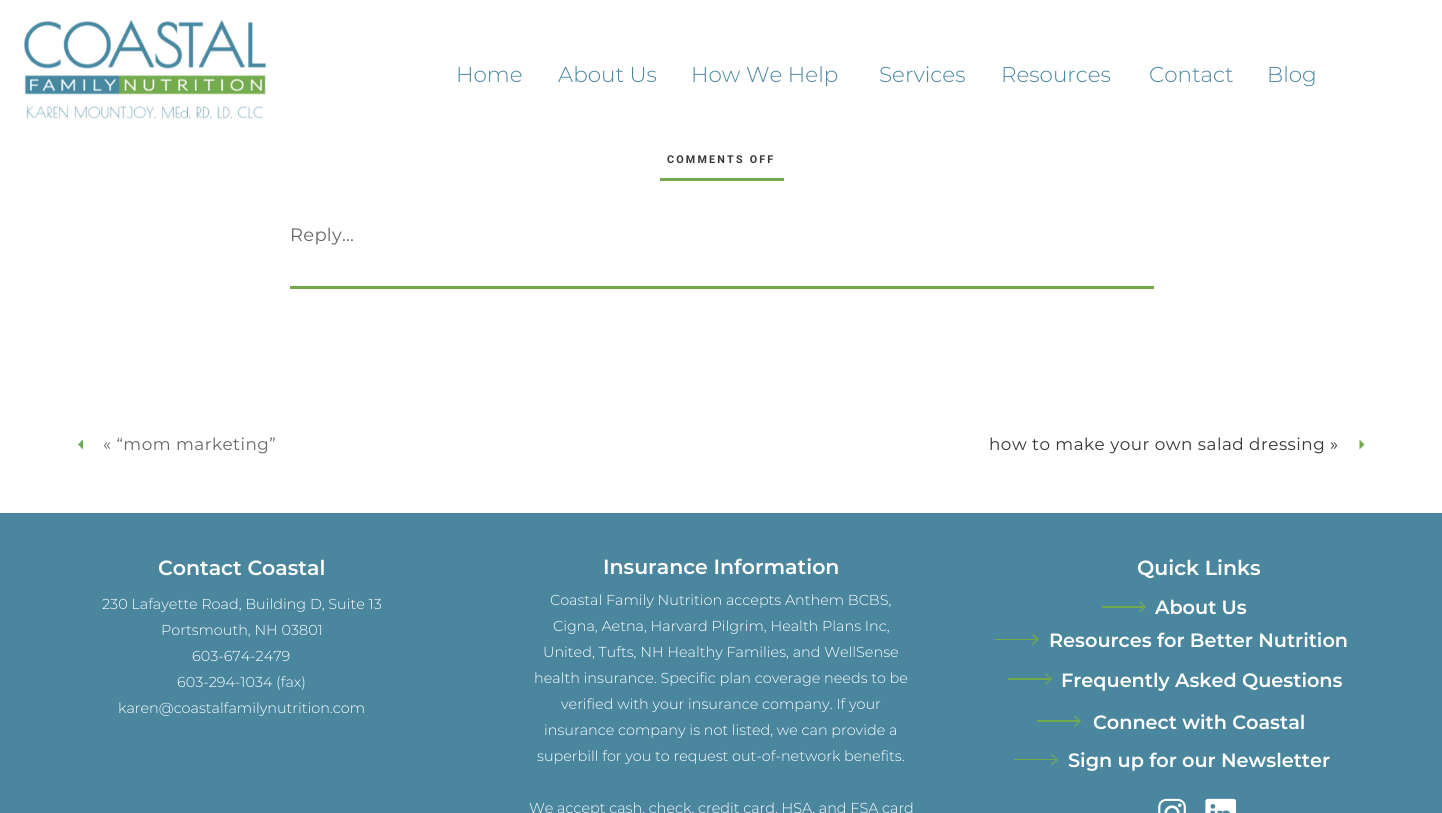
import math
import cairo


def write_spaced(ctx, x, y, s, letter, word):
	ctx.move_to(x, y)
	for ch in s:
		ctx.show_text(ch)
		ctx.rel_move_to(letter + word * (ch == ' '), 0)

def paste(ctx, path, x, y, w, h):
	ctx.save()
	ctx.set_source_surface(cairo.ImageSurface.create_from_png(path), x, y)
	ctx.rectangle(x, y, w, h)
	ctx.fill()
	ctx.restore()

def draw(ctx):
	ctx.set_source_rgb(1, 1, 1)
	ctx.paint()
	paste(ctx, 'media/1.png', 24, 19, 243, 100)
	ctx.select_font_face('Montserrat Light')
	ctx.set_font_size(21.5)
	ctx.set_source_rgb(0.29, 0.529, 0.624)
	for x, y, s in [
		(456, 82, 'Home'),
		(558, 82, 'About Us'),
		(691, 82, 'How We Help'),
		(879, 82, 'Services'),
		(1001, 82, 'Resources'),
		(1149, 82, 'Contact'),
		(1267, 82, 'Blog'),
	]:
		ctx.move_to(x, y)
		ctx.show_text(s)
	ctx.select_font_face('Roboto', cairo.FONT_SLANT_NORMAL, cairo.FONT_WEIGHT_BOLD)
	ctx.set_font_size(10.75)
	ctx.set_source_rgb(0.212, 0.212, 0.212)
	write_spaced(ctx, 667, 163, 'COMMENTS OFF', 2.2, 0)
	ctx.set_source_rgb(0.447, 0.663, 0.306)
	ctx.rectangle(660, 178, 124, 3)
	ctx.fill()
	ctx.select_font_face('Montserrat')
	ctx.set_font_size(18)
	ctx.set_source_rgb(0.404, 0.404, 0.404)
	write_spaced(ctx, 290, 241, 'Reply...', 0.25, 0)
	ctx.set_source_rgb(0.447, 0.663, 0.306)
	ctx.rectangle(290, 286, 864, 3)
	ctx.fill()
	ctx.new_path()
	ctx.move_to(83, 439.5)
	ctx.line_to(78, 444.5)
	ctx.line_to(83, 449.5)
	ctx.fill()
	ctx.set_font_size(16.8)
	ctx.set_source_rgb(0.404, 0.404, 0.404)
	write_spaced(ctx, 103, 450, '« “mom marketing”', 0.5, 0)
	ctx.set_source_rgb(0.212, 0.212, 0.212)
	write_spaced(ctx, 989, 450, 'how to make your own salad dressing »', 0.5, 0)
	ctx.set_source_rgb(0.447, 0.663, 0.306)
	ctx.new_path()
	ctx.move_to(1359.5, 439.5)
	ctx.line_to(1364.5, 444.5)
	ctx.line_to(1359.5, 449.5)
	ctx.fill()
	ctx.set_source_rgb(0.29, 0.529, 0.624)
	ctx.rectangle(0, 513, 1442, 300)
	ctx.fill()
	ctx.select_font_face('Montserrat SemiBold')
	ctx.set_font_size(20.5)
	ctx.set_source_rgb(1, 1, 1)
	for x, y, s in [
		(158, 575, 'Contact Coastal'),
		(603, 574, 'Insurance Information'),
		(1137, 575, 'Quick Links'),
	]:
		ctx.move_to(x, y)
		ctx.show_text(s)
	ctx.select_font_face('Montserrat Light')
	ctx.set_font_size(14.4)
	for x, y, s in [
		(102, 609, '230 Lafayette Road, Building D, Suite 13'),
		(161, 635, 'Portsmouth, NH 03801'),
		(192, 661, '603-674-2479'),
		(177, 687, '603-294-1034 (fax)'),
		(118, 713, 'karen@coastalfamilynutrition.com'),
		(550, 605, 'Coastal Family Nutrition accepts Anthem BCBS,'),
		(553, 631, 'Cigna, Aetna, Harvard Pilgrim, Health Plans Inc,'),
		(543, 657, 'United, Tufts, NH Healthy Families, and WellSense'),
		(534, 683, 'health insurance. Specific plan coverage needs to be'),
		(561, 709, 'verified with your insurance company. If your'),
		(544, 735, 'insurance company is not listed, we can provide a'),
		(537, 761, 'superbill for you to request out-of-network benefits.'),
		(529, 813, 'We accept cash, check, credit card, HSA, and FSA card'),
	]:
		ctx.move_to(x, y)
		ctx.show_text(s)
	ctx.set_source_rgb(0.447, 0.663, 0.306)
	ctx.new_path()
	ctx.move_to(1140, 601)
	ctx.line_to(1139, 602)
	ctx.line_to(1143, 606)
	ctx.line_to(1102, 606)
	ctx.line_to(1102, 608)
	ctx.line_to(1143, 608)
	ctx.line_to(1139, 611)
	ctx.line_to(1140, 612)
	ctx.line_to(1146, 607)
	ctx.close_path()
	ctx.fill()
	ctx.select_font_face('Montserrat SemiBold')
	ctx.set_font_size(19.25)
	ctx.set_source_rgb(1, 1, 1)
	ctx.move_to(1155, 614)
	ctx.show_text('About Us')
	ctx.move_to(1049, 647)
	ctx.show_text('Resources for Better Nutrition')
	ctx.set_source_rgb(0.447, 0.663, 0.306)
	ctx.new_path()
	ctx.move_to(1046, 673)
	ctx.line_to(1045, 674)
	ctx.line_to(1050, 678)
	ctx.line_to(1008, 678)
	ctx.line_to(1008, 680)
	ctx.line_to(1050, 680)
	ctx.line_to(1045, 684)
	ctx.line_to(1046, 685)
	ctx.line_to(1052, 679)
	ctx.close_path()
	ctx.move_to(1033, 634)
	ctx.line_to(1032, 635)
	ctx.line_to(1036, 639)
	ctx.line_to(995, 639)
	ctx.line_to(995, 640)
	ctx.line_to(1036, 640)
	ctx.line_to(1032, 644)
	ctx.line_to(1033, 645)
	ctx.line_to(1039, 639)
	ctx.close_path()
	ctx.fill()
	ctx.set_source_rgb(1, 1, 1)
	ctx.move_to(1061, 687)
	ctx.show_text('Frequently Asked Questions')
	ctx.set_source_rgb(0.447, 0.663, 0.306)
	ctx.new_path()
	ctx.move_to(1075, 716)
	ctx.line_to(1074, 717)
	ctx.line_to(1078, 720)
	ctx.line_to(1037, 720)
	ctx.line_to(1037, 722)
	ctx.line_to(1078, 722)
	ctx.line_to(1074, 726)
	ctx.line_to(1075, 727)
	ctx.line_to(1081, 721)
	ctx.close_path()
	ctx.fill()
	ctx.set_source_rgb(1, 1, 1)
	ctx.move_to(1093, 729)
	ctx.show_text('Connect with Coastal')
	ctx.set_source_rgb(0.447, 0.663, 0.306)
	ctx.new_path()
	ctx.move_to(1052, 754)
	ctx.line_to(1051, 755)
	ctx.line_to(1056, 759)
	ctx.line_to(1014, 759)
	ctx.line_to(1014, 760)
	ctx.line_to(1056, 760)
	ctx.line_to(1051, 764)
	ctx.line_to(1052, 765)
	ctx.line_to(1058, 760)
	ctx.close_path()
	ctx.fill()
	ctx.set_source_rgb(1, 1, 1)
	ctx.move_to(1068, 767)
	ctx.show_text('Sign up for our Newsletter')
	paste(ctx, 'media/2.png', 1158, 798, 28, 15)
	paste(ctx, 'media/3.png', 1205, 798, 32, 15)


surface = cairo.ImageSurface(cairo.FORMAT_RGB24, 1442, 813)
ctx = cairo.Context(surface)
options = cairo.FontOptions()
options.set_hint_metrics(cairo.HINT_METRICS_OFF)
options.set_hint_style(cairo.HINT_STYLE_NONE)
ctx.set_font_options(options)
ctx.set_miter_limit(4)
draw(ctx)
surface.write_to_png('image.png')
